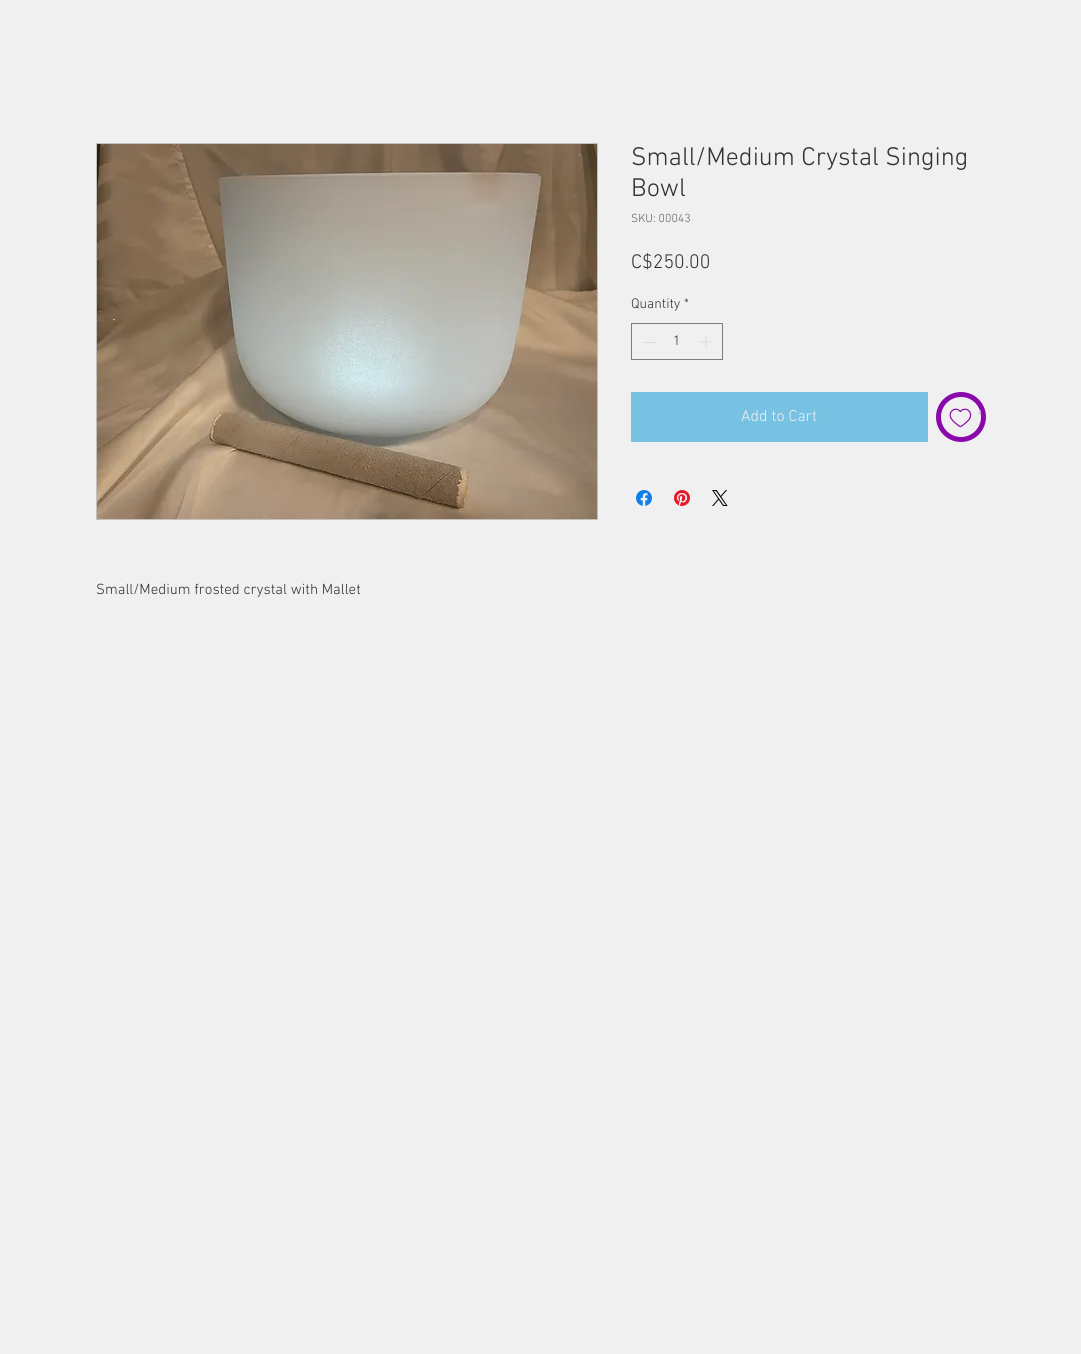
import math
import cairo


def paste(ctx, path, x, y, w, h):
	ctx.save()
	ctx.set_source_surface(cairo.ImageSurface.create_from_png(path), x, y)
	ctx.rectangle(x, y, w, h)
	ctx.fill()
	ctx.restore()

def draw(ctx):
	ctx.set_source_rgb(0.941, 0.941, 0.941)
	ctx.paint()
	ctx.select_font_face('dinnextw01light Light')
	ctx.set_font_size(26)
	ctx.set_source_rgb(0.188, 0.188, 0.188)
	ctx.move_to(631, 165)
	ctx.show_text('Small/Medium Crystal Singing')
	ctx.move_to(631, 196)
	ctx.show_text('Bowl')
	ctx.set_font_size(12)
	ctx.set_source_rgb(0.376, 0.376, 0.376)
	ctx.move_to(631, 222)
	ctx.show_text('SKU: 00043')
	ctx.set_font_size(20)
	ctx.set_source_rgb(0.188, 0.188, 0.188)
	ctx.move_to(631, 268)
	ctx.show_text('C$250.00')
	ctx.set_font_size(14)
	ctx.move_to(631, 308)
	ctx.show_text('Quantity')
	ctx.move_to(684, 308)
	ctx.show_text('*')
	ctx.rectangle(631.5, 323.5, 91, 36)
	ctx.set_source_rgb(0.49, 0.49, 0.49)
	ctx.set_line_width(1)
	ctx.stroke()
	ctx.set_source_rgb(0.863, 0.863, 0.863)
	ctx.rectangle(643, 342, 13, 1)
	ctx.fill()
	ctx.set_source_rgb(0.188, 0.188, 0.188)
	ctx.move_to(673, 345)
	ctx.show_text('1')
	paste(ctx, 'media/1.png', 699, 335, 14, 14)
	ctx.set_source_rgb(0.467, 0.761, 0.886)
	ctx.rectangle(631, 392, 297, 50)
	ctx.fill()
	ctx.set_font_size(16)
	ctx.set_source_rgb(0.941, 0.941, 0.941)
	ctx.move_to(741, 421)
	ctx.show_text('Add to Cart')
	ctx.new_path()
	ctx.arc(961, 417, 22.5, 0, 2 * math.pi)
	ctx.set_source_rgb(0.541, 0.039, 0.667)
	ctx.set_line_width(5)
	ctx.stroke()
	paste(ctx, 'media/2.png', 949, 408, 23, 20)
	ctx.save()
	ctx.rectangle(941, 401, 40, 32)
	ctx.clip()
	ctx.select_font_face('dinnextw01light Light', cairo.FONT_SLANT_ITALIC)
	ctx.set_source_rgb(0.855, 0.741, 0.882)
	ctx.move_to(975, 421)
	ctx.show_text('*')
	ctx.restore()
	paste(ctx, 'media/3.png', 636, 490, 16, 16)
	paste(ctx, 'media/4.png', 674, 490, 16, 16)
	paste(ctx, 'media/5.png', 712, 490, 16, 16)
	ctx.rectangle(96.5, 143.5, 501, 376)
	ctx.set_source_rgb(0.753, 0.753, 0.753)
	ctx.set_line_width(1)
	ctx.stroke()
	paste(ctx, 'media/6.png', 97, 144, 500, 375)
	ctx.set_font_size(15)
	ctx.set_source_rgb(0.188, 0.188, 0.188)
	ctx.move_to(96, 594)
	ctx.show_text('Small/Medium frosted crystal with Mallet')


surface = cairo.ImageSurface(cairo.FORMAT_RGB24, 1081, 1354)
ctx = cairo.Context(surface)
options = cairo.FontOptions()
options.set_hint_metrics(cairo.HINT_METRICS_OFF)
options.set_hint_style(cairo.HINT_STYLE_NONE)
ctx.set_font_options(options)
ctx.set_miter_limit(4)
draw(ctx)
surface.write_to_png('image.png')
